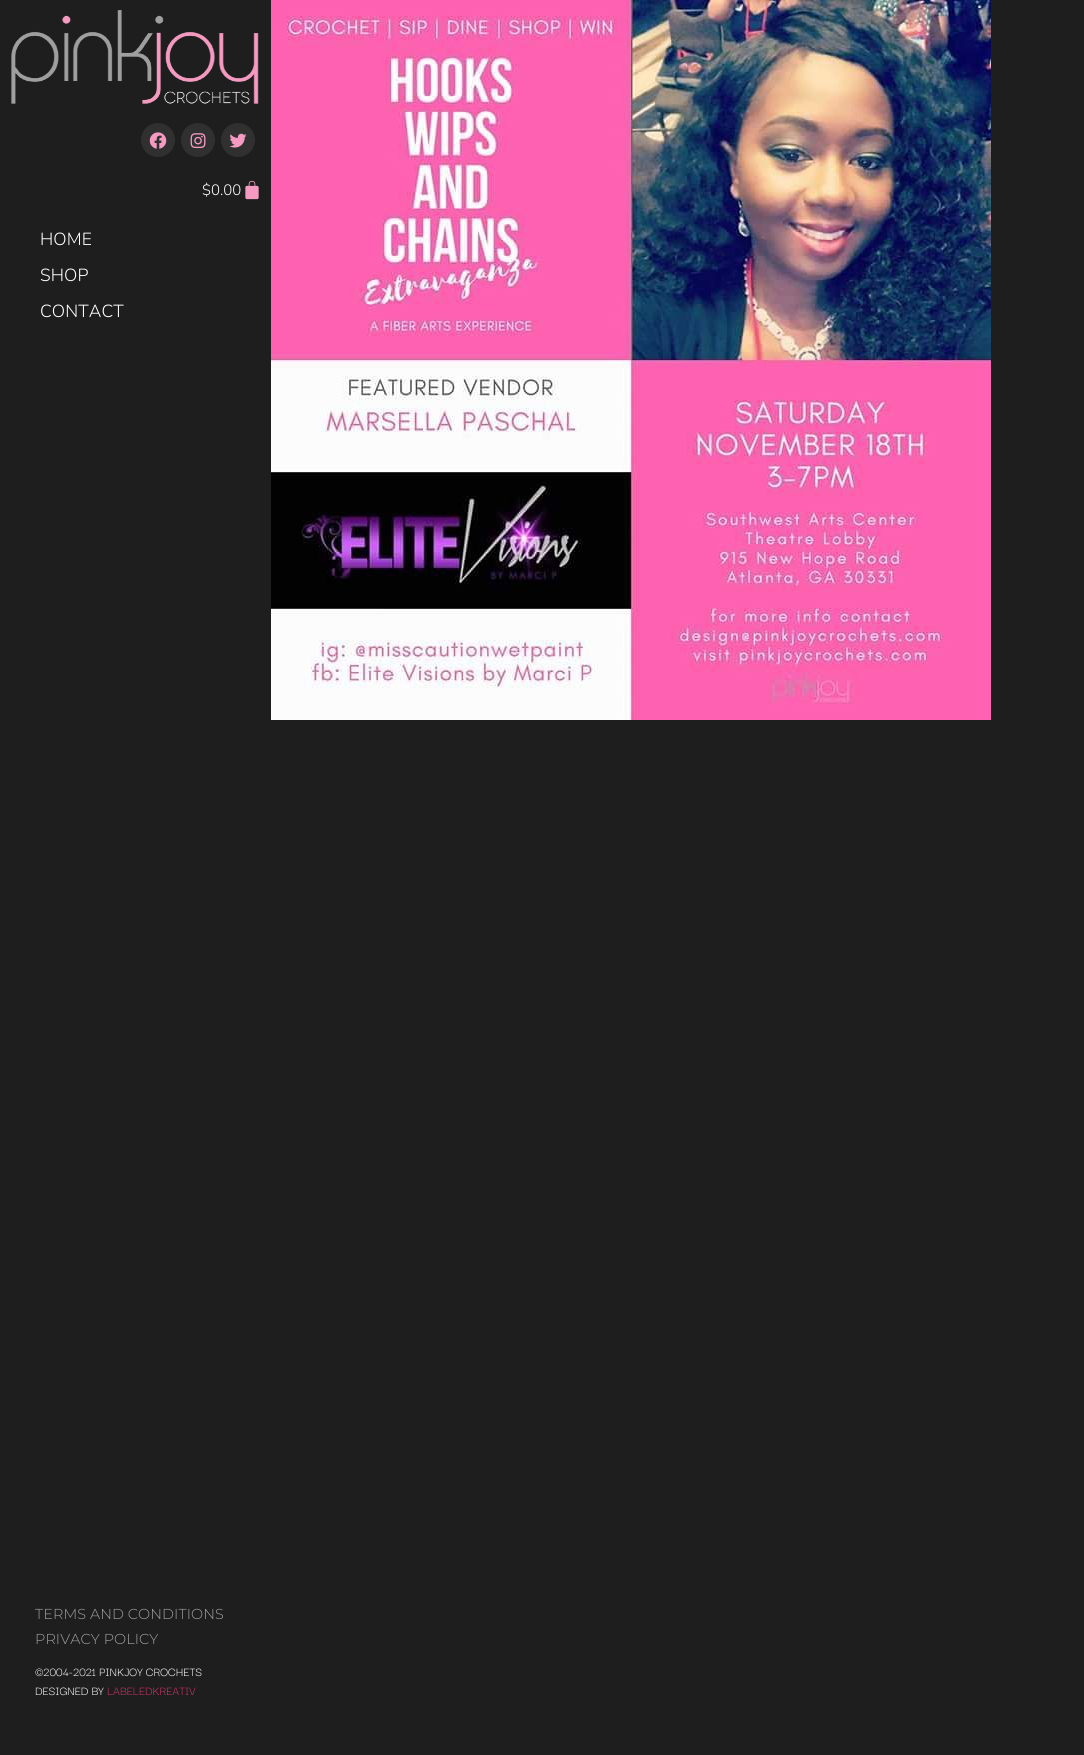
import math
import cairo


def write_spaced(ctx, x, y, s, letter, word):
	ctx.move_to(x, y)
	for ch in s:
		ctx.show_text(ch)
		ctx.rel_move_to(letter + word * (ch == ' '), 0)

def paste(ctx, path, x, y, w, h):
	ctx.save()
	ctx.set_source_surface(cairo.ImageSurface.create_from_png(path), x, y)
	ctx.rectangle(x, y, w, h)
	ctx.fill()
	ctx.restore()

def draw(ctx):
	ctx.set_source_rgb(0.118, 0.118, 0.118)
	ctx.paint()
	paste(ctx, 'media/1.png', 11, 10, 248, 94)
	ctx.set_source_rgb(0.188, 0.188, 0.188)
	ctx.arc(158, 140, 17, 0, 2 * math.pi)
	ctx.fill()
	paste(ctx, 'media/2.png', 149, 132, 18, 17)
	ctx.arc(198, 140, 17, 0, 2 * math.pi)
	ctx.fill()
	paste(ctx, 'media/3.png', 190, 133, 16, 16)
	ctx.arc(238, 140, 17, 0, 2 * math.pi)
	ctx.fill()
	paste(ctx, 'media/4.png', 229, 133, 18, 15)
	ctx.select_font_face('Nunito Light')
	ctx.set_font_size(15)
	ctx.set_source_rgb(1, 1, 1)
	ctx.move_to(202, 195)
	ctx.show_text('$0.00')
	paste(ctx, 'media/5.png', 245, 180, 14, 20)
	ctx.set_font_size(17.5)
	for x, y, s in [
		(40, 245, 'HOME'),
		(40, 281, 'SHOP'),
		(40, 317, 'CONTACT'),
	]:
		write_spaced(ctx, x, y, s, 0.1, 0)
	ctx.select_font_face('Montserrat Light')
	ctx.set_font_size(14.4)
	ctx.set_source_rgb(0.624, 0.624, 0.624)
	write_spaced(ctx, 35, 1619, 'TERMS AND CONDITIONS', 0.1, 0)
	write_spaced(ctx, 35, 1644, 'PRIVACY POLICY', 0.1, 0)
	ctx.select_font_face('Darker Grotesque')
	ctx.set_font_size(13)
	ctx.set_source_rgb(1, 1, 1)
	ctx.move_to(35, 1676)
	ctx.show_text('©2004-2021 PINKJOY CROCHETS')
	ctx.move_to(35, 1695)
	ctx.show_text('DESIGNED BY')
	ctx.set_source_rgb(0.8, 0.2, 0.4)
	ctx.move_to(107, 1695)
	ctx.show_text('LABELEDKREATIV')
	paste(ctx, 'media/6.png', 271, 0, 720, 720)


surface = cairo.ImageSurface(cairo.FORMAT_RGB24, 1084, 1755)
ctx = cairo.Context(surface)
options = cairo.FontOptions()
options.set_hint_metrics(cairo.HINT_METRICS_OFF)
options.set_hint_style(cairo.HINT_STYLE_NONE)
ctx.set_font_options(options)
ctx.set_miter_limit(4)
draw(ctx)
surface.write_to_png('image.png')
